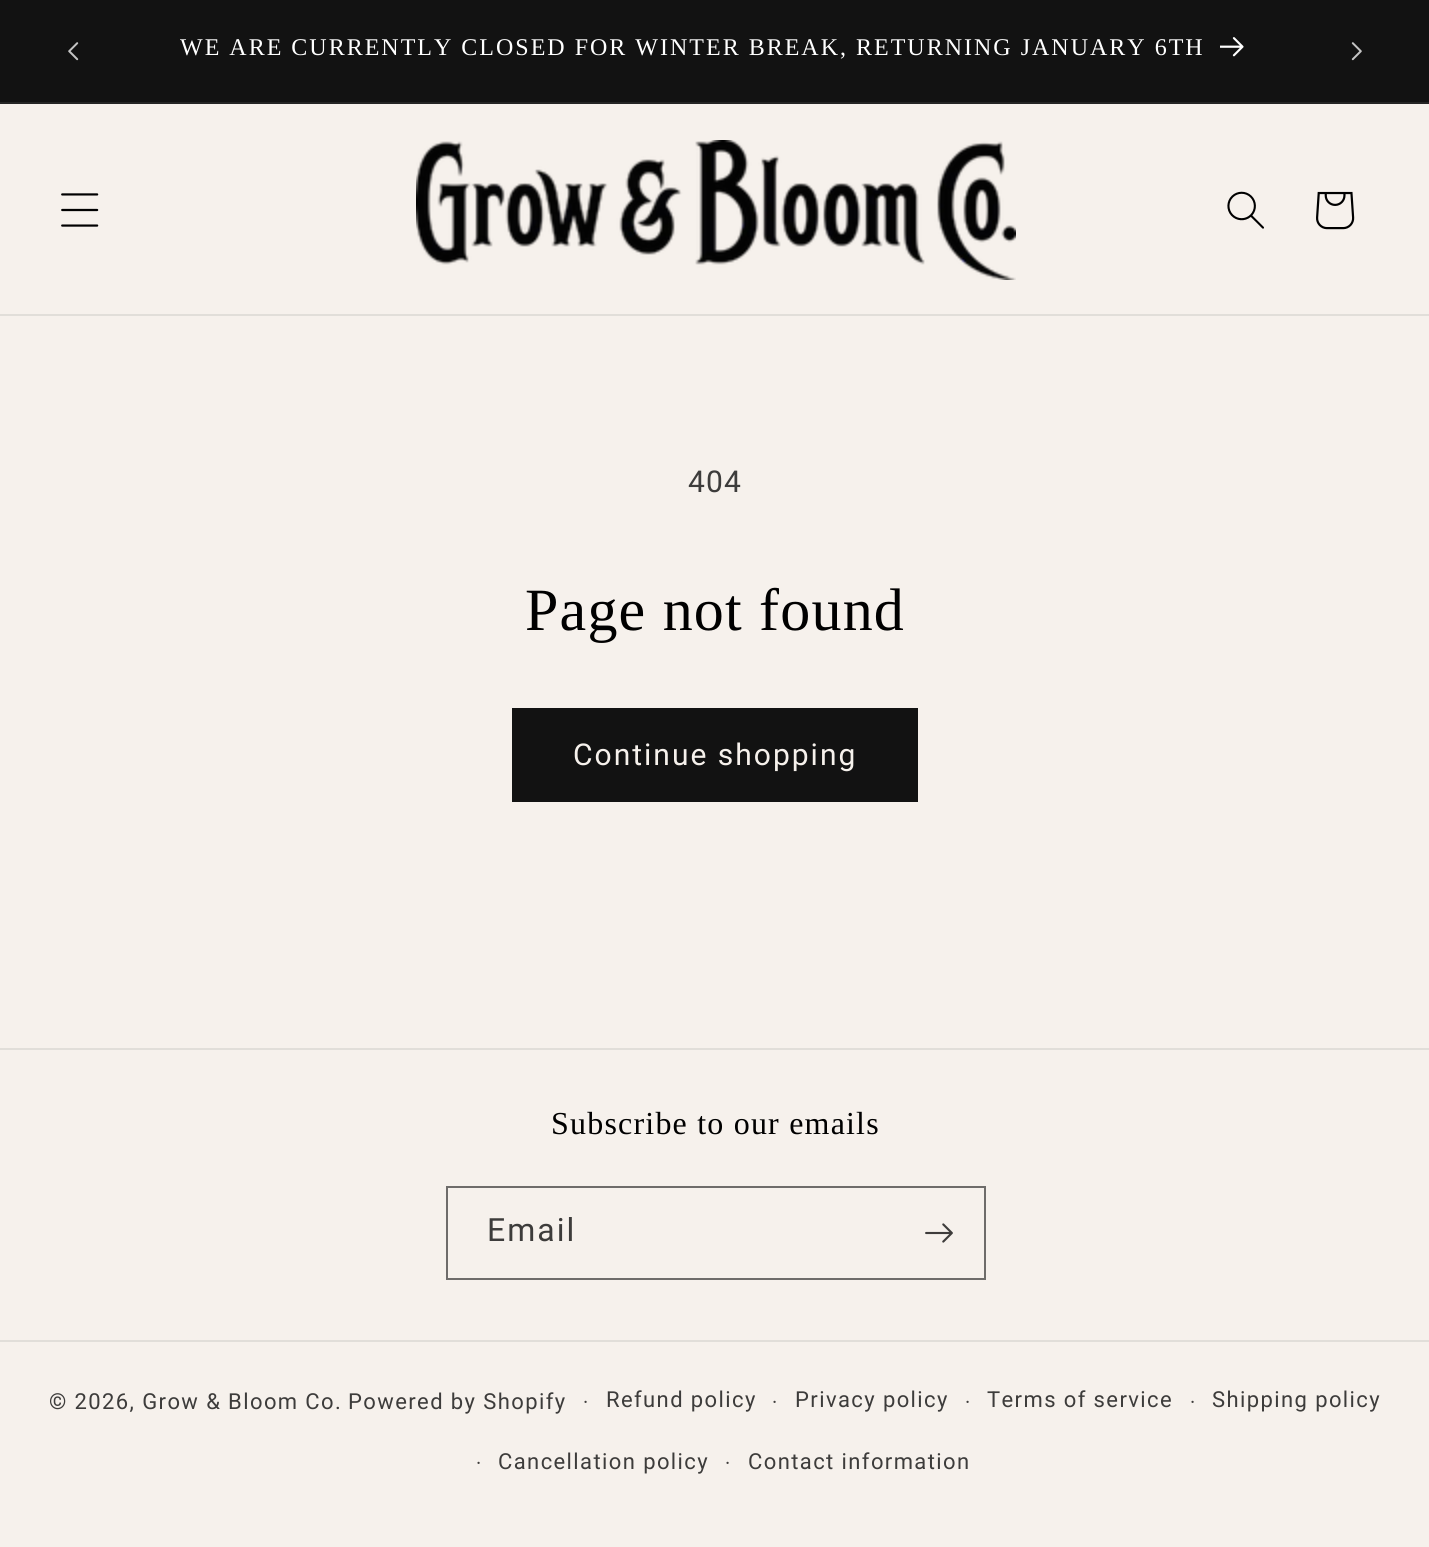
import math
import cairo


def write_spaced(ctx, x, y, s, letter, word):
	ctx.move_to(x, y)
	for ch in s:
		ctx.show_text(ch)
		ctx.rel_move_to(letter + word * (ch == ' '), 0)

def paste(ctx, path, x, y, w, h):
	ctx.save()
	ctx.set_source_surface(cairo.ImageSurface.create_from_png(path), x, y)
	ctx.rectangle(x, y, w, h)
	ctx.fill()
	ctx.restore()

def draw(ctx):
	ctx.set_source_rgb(0.961, 0.945, 0.925)
	ctx.paint()
	ctx.set_source_rgb(0.071, 0.071, 0.071)
	ctx.rectangle(0, 0, 1429, 102)
	ctx.fill()
	ctx.set_source_rgb(0.145, 0.145, 0.145)
	ctx.rectangle(0, 102, 1429, 2)
	ctx.fill()
	paste(ctx, 'media/1.png', 68, 42, 11, 19)
	ctx.select_font_face('Liberation Serif')
	ctx.set_font_size(24)
	ctx.set_source_rgb(1, 1, 1)
	write_spaced(ctx, 180, 55, 'WE ARE CURRENTLY CLOSED FOR WINTER BREAK, RETURNING JANUARY 6TH', 2, 0)
	paste(ctx, 'media/2.png', 1220, 37, 24, 20)
	paste(ctx, 'media/3.png', 1351, 42, 11, 19)
	ctx.set_source_rgb(0.882, 0.871, 0.851)
	ctx.rectangle(0, 314, 1429, 2)
	ctx.fill()
	paste(ctx, 'media/4.png', 61, 193, 38, 34)
	paste(ctx, 'media/5.png', 416, 140, 600, 140)
	paste(ctx, 'media/6.png', 1227, 191, 37, 38)
	paste(ctx, 'media/7.png', 1316, 191, 39, 39)
	ctx.select_font_face('Roboto')
	ctx.set_font_size(30)
	ctx.set_source_rgb(0.239, 0.235, 0.231)
	write_spaced(ctx, 688, 492, '404', 1.2, 0)
	ctx.select_font_face('Liberation Serif')
	ctx.set_font_size(60)
	ctx.set_source_rgb(0, 0, 0)
	write_spaced(ctx, 525, 630, 'Page not found', 1.2, 0)
	ctx.set_source_rgb(0.071, 0.071, 0.071)
	ctx.rectangle(512, 708, 406, 94)
	ctx.fill()
	ctx.select_font_face('Roboto')
	ctx.set_font_size(30)
	ctx.set_source_rgb(0.961, 0.945, 0.925)
	write_spaced(ctx, 573, 765, 'Continue shopping', 2, 0)
	ctx.set_source_rgb(0.882, 0.871, 0.851)
	ctx.rectangle(0, 1048, 1429, 2)
	ctx.fill()
	ctx.select_font_face('Liberation Serif')
	ctx.set_font_size(32)
	ctx.set_source_rgb(0, 0, 0)
	write_spaced(ctx, 551, 1134, 'Subscribe to our emails', 1.2, 0)
	ctx.rectangle(447, 1187, 538, 92)
	ctx.set_source_rgb(0.431, 0.424, 0.416)
	ctx.stroke()
	ctx.select_font_face('Roboto')
	ctx.set_source_rgb(0.239, 0.235, 0.231)
	write_spaced(ctx, 487, 1241, 'Email', 2, 0)
	paste(ctx, 'media/8.png', 925, 1223, 28, 20)
	ctx.set_source_rgb(0.882, 0.871, 0.851)
	ctx.rectangle(0, 1340, 1429, 2)
	ctx.fill()
	ctx.set_font_size(22)
	ctx.set_source_rgb(0.239, 0.235, 0.231)
	write_spaced(ctx, 49, 1409, '© 2026, Grow & Bloom Co.', 1.4, 0)
	write_spaced(ctx, 348, 1409, 'Powered by Shopify', 1.4, 0)
	ctx.set_font_size(20)
	write_spaced(ctx, 583, 1409, '·', 1.4, 0)
	ctx.set_font_size(22)
	write_spaced(ctx, 606, 1407, 'Refund policy', 1.4, 0)
	ctx.set_font_size(20)
	write_spaced(ctx, 772, 1409, '·', 1.4, 0)
	ctx.set_font_size(22)
	write_spaced(ctx, 795, 1407, 'Privacy policy', 1.4, 0)
	ctx.set_font_size(20)
	write_spaced(ctx, 965, 1409, '·', 1.4, 0)
	ctx.set_font_size(22)
	write_spaced(ctx, 987, 1407, 'Terms of service', 1.4, 0)
	ctx.set_font_size(20)
	write_spaced(ctx, 1190, 1409, '·', 1.4, 0)
	ctx.set_font_size(22)
	write_spaced(ctx, 1212, 1407, 'Shipping policy', 1.4, 0)
	ctx.set_font_size(20)
	write_spaced(ctx, 476, 1470, '·', 1.4, 0)
	ctx.set_font_size(22)
	write_spaced(ctx, 498, 1469, 'Cancellation policy', 1.4, 0)
	ctx.set_font_size(20)
	write_spaced(ctx, 725, 1470, '·', 1.4, 0)
	ctx.set_font_size(22)
	write_spaced(ctx, 748, 1469, 'Contact information', 1.4, 0)


surface = cairo.ImageSurface(cairo.FORMAT_RGB24, 1429, 1547)
ctx = cairo.Context(surface)
options = cairo.FontOptions()
options.set_hint_metrics(cairo.HINT_METRICS_OFF)
options.set_hint_style(cairo.HINT_STYLE_NONE)
ctx.set_font_options(options)
ctx.set_miter_limit(4)
draw(ctx)
surface.write_to_png('image.png')
